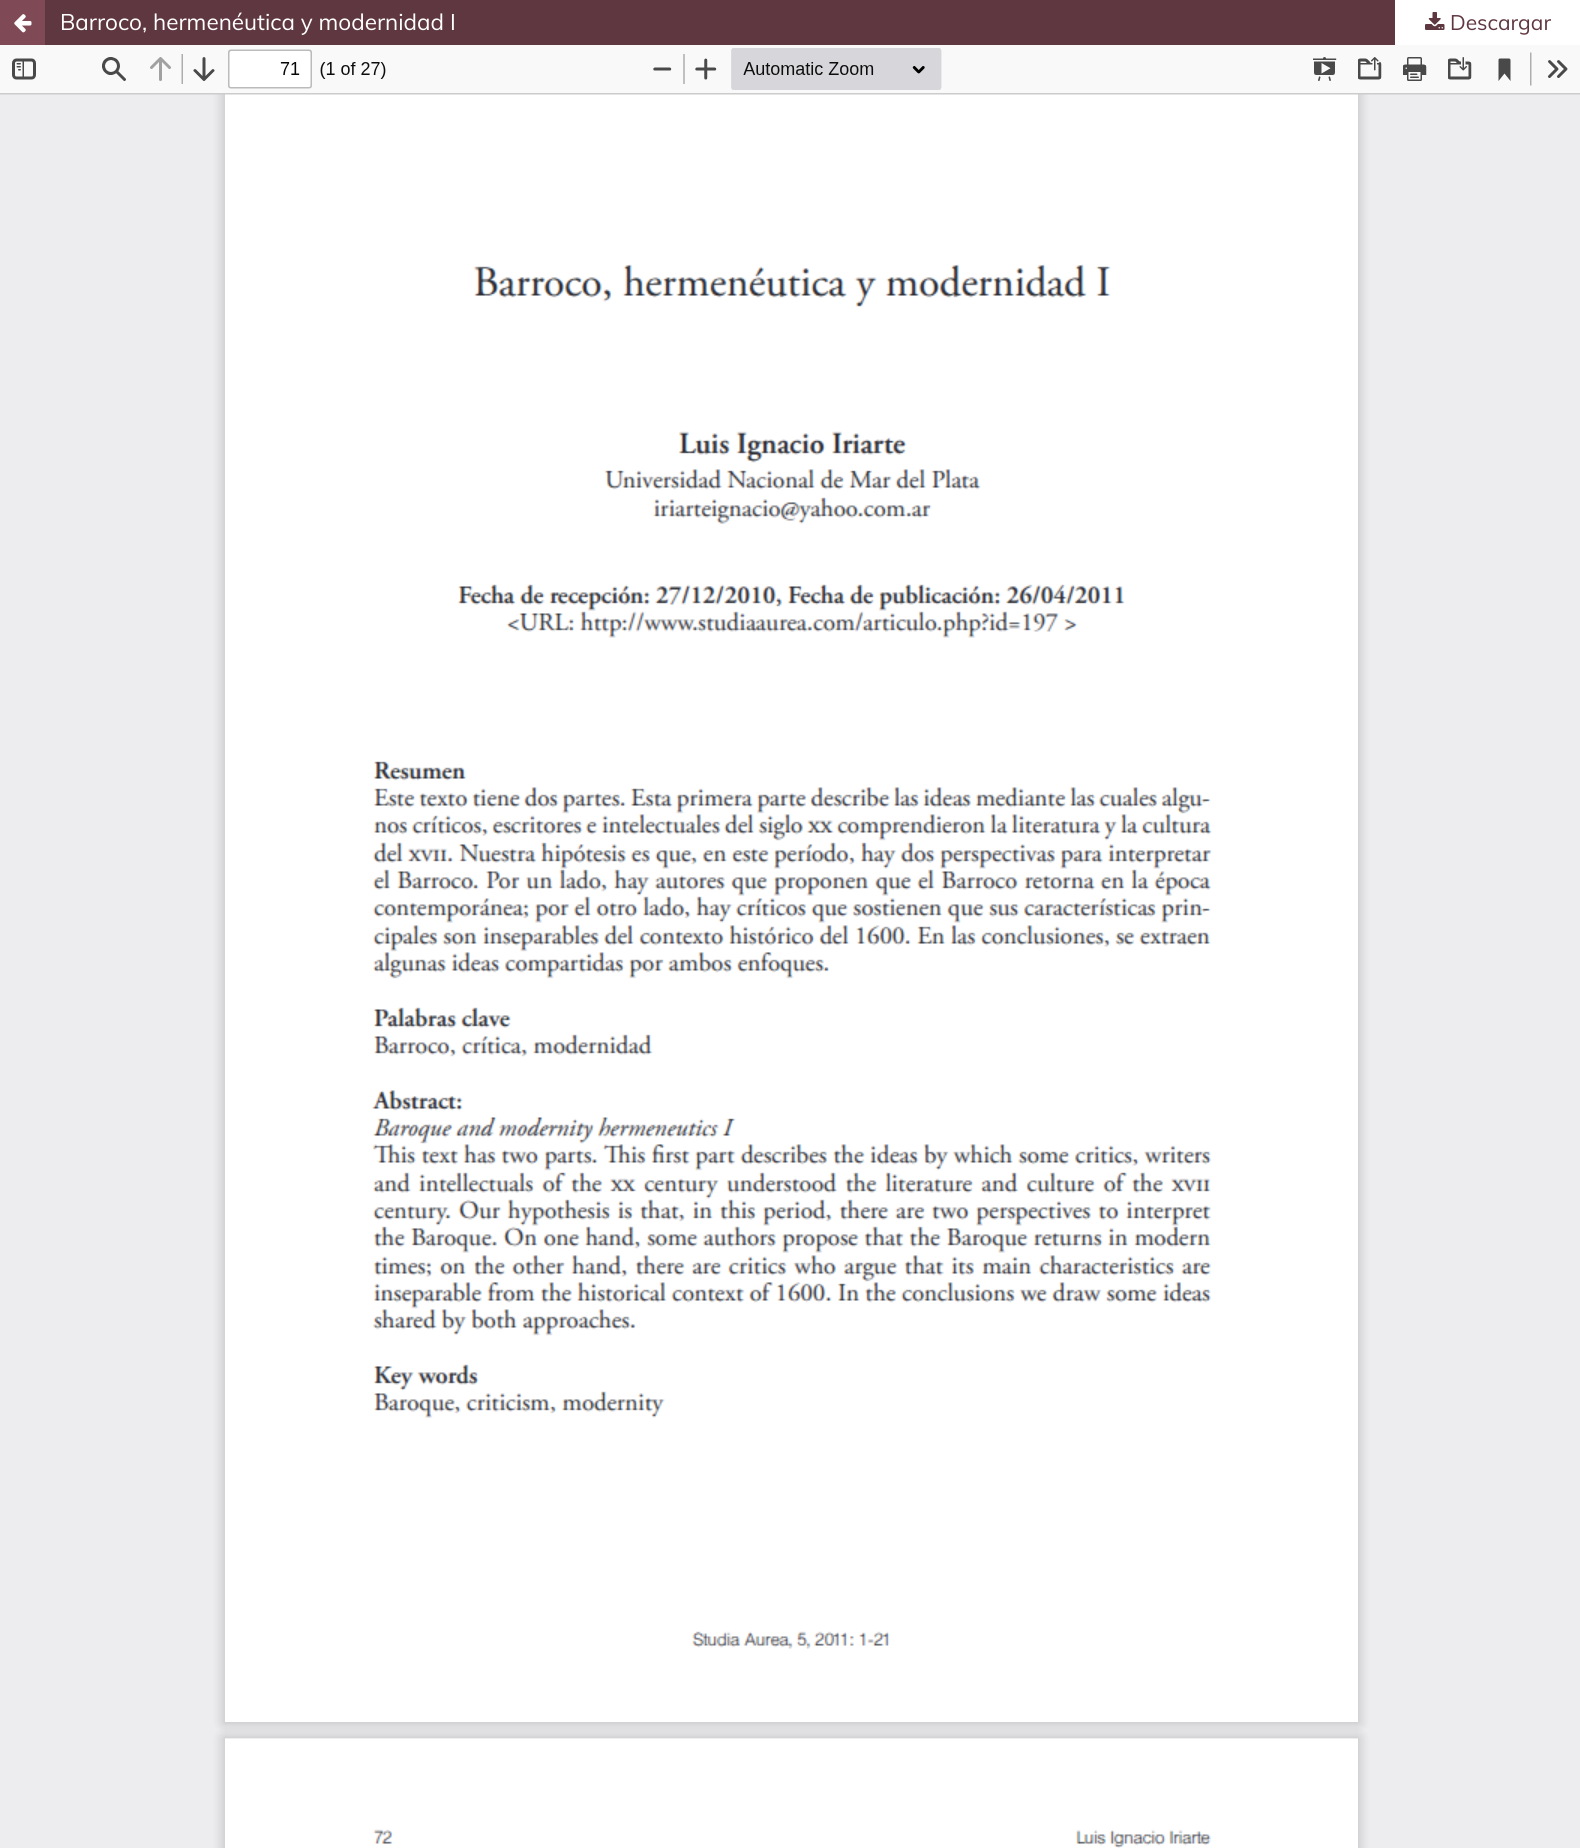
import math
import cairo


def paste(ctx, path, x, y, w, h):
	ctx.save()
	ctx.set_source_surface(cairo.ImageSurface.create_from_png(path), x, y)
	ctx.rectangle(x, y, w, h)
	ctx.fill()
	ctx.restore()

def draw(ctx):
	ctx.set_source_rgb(1, 1, 1)
	ctx.paint()
	ctx.set_source_rgb(0.373, 0.216, 0.251)
	ctx.rectangle(45, 0, 1350, 45)
	ctx.fill()
	ctx.set_source_rgb(0.498, 0.29, 0.337)
	ctx.rectangle(0, 0, 45, 45)
	ctx.fill()
	paste(ctx, 'media/1.png', 14, 14, 18, 19)
	ctx.select_font_face('Muli')
	ctx.set_font_size(22.5)
	ctx.set_source_rgb(1, 1, 1)
	ctx.move_to(60, 30)
	ctx.show_text('Barroco, hermenéutica y modernidad I')
	paste(ctx, 'media/2.png', 1425, 12, 20, 18)
	ctx.set_font_size(21)
	ctx.set_source_rgb(0.373, 0.216, 0.251)
	ctx.move_to(1450, 30)
	ctx.show_text('Descargar')
	paste(ctx, 'media/3.png', 0, 45, 1580, 1803)


surface = cairo.ImageSurface(cairo.FORMAT_RGB24, 1580, 1848)
ctx = cairo.Context(surface)
options = cairo.FontOptions()
options.set_hint_metrics(cairo.HINT_METRICS_OFF)
options.set_hint_style(cairo.HINT_STYLE_NONE)
ctx.set_font_options(options)
ctx.set_miter_limit(4)
draw(ctx)
surface.write_to_png('image.png')
